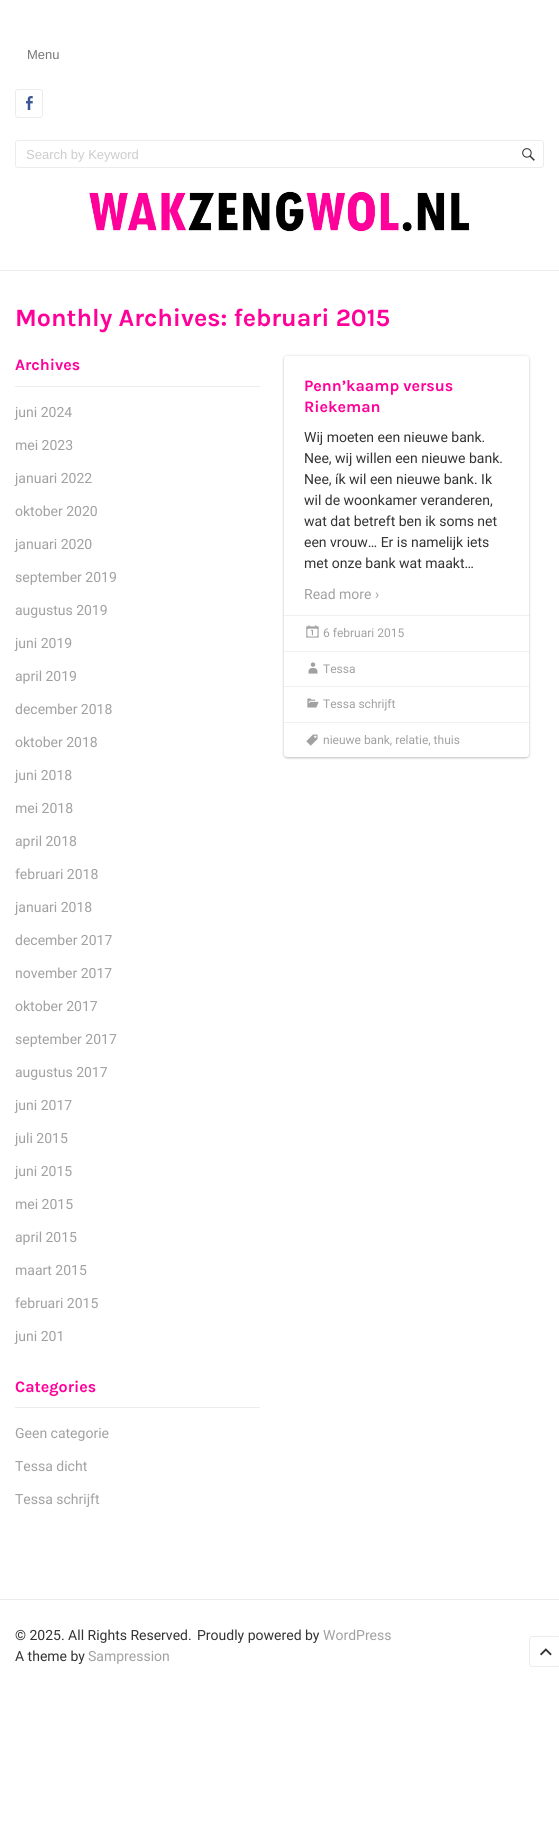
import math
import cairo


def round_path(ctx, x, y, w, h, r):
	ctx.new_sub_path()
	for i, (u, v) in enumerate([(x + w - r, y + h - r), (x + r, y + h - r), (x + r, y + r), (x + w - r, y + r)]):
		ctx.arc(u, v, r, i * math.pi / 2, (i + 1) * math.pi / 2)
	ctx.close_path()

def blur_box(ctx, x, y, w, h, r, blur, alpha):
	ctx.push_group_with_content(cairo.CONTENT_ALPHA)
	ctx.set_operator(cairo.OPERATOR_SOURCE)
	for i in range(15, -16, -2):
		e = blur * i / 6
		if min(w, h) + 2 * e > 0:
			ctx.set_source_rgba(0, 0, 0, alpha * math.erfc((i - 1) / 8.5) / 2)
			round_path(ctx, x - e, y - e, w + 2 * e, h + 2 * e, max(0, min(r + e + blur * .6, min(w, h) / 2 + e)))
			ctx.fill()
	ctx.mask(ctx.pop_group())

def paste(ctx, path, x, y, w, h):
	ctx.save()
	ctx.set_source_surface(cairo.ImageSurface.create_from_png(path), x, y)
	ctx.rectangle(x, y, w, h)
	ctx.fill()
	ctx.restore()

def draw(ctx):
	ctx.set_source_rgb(1, 1, 1)
	ctx.paint()
	ctx.set_source_rgb(0.922, 0.922, 0.922)
	ctx.rectangle(0, 270, 559, 1)
	ctx.fill()
	ctx.select_font_face('Liberation Sans')
	ctx.set_font_size(13)
	ctx.set_source_rgb(0.467, 0.467, 0.467)
	ctx.move_to(27, 59)
	ctx.show_text('Menu')
	round_path(ctx, 15.5, 89.5, 27, 28, 2.5)
	ctx.set_source_rgb(0.922, 0.922, 0.922)
	ctx.set_line_width(1)
	ctx.stroke()
	paste(ctx, 'media/1.png', 26, 96, 7, 14)
	round_path(ctx, 15.5, 140.5, 528, 27, 2.5)
	ctx.stroke()
	ctx.set_source_rgb(0.8, 0.8, 0.8)
	ctx.move_to(26, 159)
	ctx.show_text('Search by Keyword')
	paste(ctx, 'media/2.png', 522, 148, 13, 13)
	paste(ctx, 'media/3.png', 89, 191, 381, 41)
	ctx.select_font_face('Karla', cairo.FONT_SLANT_NORMAL, cairo.FONT_WEIGHT_BOLD)
	ctx.set_font_size(25)
	ctx.set_source_rgb(1, 0, 0.6)
	ctx.move_to(15, 326)
	ctx.show_text('Monthly Archives: februari 2015')
	ctx.set_source_rgb(0.922, 0.922, 0.922)
	ctx.rectangle(15, 386, 245, 1)
	ctx.fill()
	ctx.set_font_size(16)
	ctx.set_source_rgb(1, 0, 0.6)
	ctx.move_to(15, 370)
	ctx.show_text('Archives')
	ctx.select_font_face('Roboto')
	ctx.set_font_size(14)
	ctx.set_source_rgb(0.631, 0.631, 0.631)
	for x, y, s in [
		(15, 417, 'juni 2024'),
		(15, 450, 'mei 2023'),
		(15, 483, 'januari 2022'),
		(15, 516, 'oktober 2020'),
		(15, 549, 'januari 2020'),
		(15, 582, 'september 2019'),
		(15, 615, 'augustus 2019'),
		(15, 648, 'juni 2019'),
		(15, 681, 'april 2019'),
		(15, 714, 'december 2018'),
		(15, 747, 'oktober 2018'),
		(15, 780, 'juni 2018'),
		(15, 813, 'mei 2018'),
		(15, 846, 'april 2018'),
		(15, 879, 'februari 2018'),
		(15, 912, 'januari 2018'),
		(15, 945, 'december 2017'),
		(15, 978, 'november 2017'),
		(15, 1011, 'oktober 2017'),
		(15, 1044, 'september 2017'),
		(15, 1077, 'augustus 2017'),
		(15, 1110, 'juni 2017'),
		(15, 1143, 'juli 2015'),
		(15, 1176, 'juni 2015'),
		(15, 1209, 'mei 2015'),
		(15, 1242, 'april 2015'),
		(15, 1275, 'maart 2015'),
		(15, 1308, 'februari 2015'),
		(15, 1341, 'juni 201'),
	]:
		ctx.move_to(x, y)
		ctx.show_text(s)
	ctx.set_source_rgb(0.922, 0.922, 0.922)
	ctx.rectangle(15, 1407, 245, 1)
	ctx.fill()
	ctx.select_font_face('Karla', cairo.FONT_SLANT_NORMAL, cairo.FONT_WEIGHT_BOLD)
	ctx.set_font_size(16)
	ctx.set_source_rgb(1, 0, 0.6)
	ctx.move_to(15, 1392)
	ctx.show_text('Categories')
	ctx.select_font_face('Roboto')
	ctx.set_font_size(14)
	ctx.set_source_rgb(0.631, 0.631, 0.631)
	for x, y, s in [
		(15, 1438, 'Geen categorie'),
		(15, 1471, 'Tessa dicht'),
		(15, 1504, 'Tessa schrijft'),
	]:
		ctx.move_to(x, y)
		ctx.show_text(s)
	ctx.set_source_rgb(0, 0, 0)
	blur_box(ctx, 284, 356, 245, 401, 3, 1.5, 0.1)
	blur_box(ctx, 284, 357, 245, 401, 3, 1, 0.2)
	ctx.set_source_rgb(1, 1, 1)
	round_path(ctx, 284, 356, 245, 401, 3)
	ctx.fill()
	ctx.select_font_face('Karla', cairo.FONT_SLANT_NORMAL, cairo.FONT_WEIGHT_BOLD)
	ctx.set_font_size(16)
	ctx.set_source_rgb(1, 0, 0.6)
	ctx.move_to(304, 391)
	ctx.show_text('Penn’kaamp versus')
	ctx.move_to(304, 412)
	ctx.show_text('Riekeman')
	ctx.select_font_face('Roboto')
	ctx.set_font_size(14)
	ctx.set_source_rgb(0.2, 0.2, 0.2)
	for x, y, s in [
		(304, 442, 'Wij moeten een nieuwe bank.'),
		(304, 463, 'Nee, wij willen een nieuwe bank.'),
		(304, 484, 'Nee, ík wil een nieuwe bank. Ik'),
		(304, 505, 'wil de woonkamer veranderen,'),
		(304, 526, 'wat dat betreft ben ik soms net'),
		(304, 547, 'een vrouw… Er is namelijk iets'),
		(304, 568, 'met onze bank wat maakt…'),
	]:
		ctx.move_to(x, y)
		ctx.show_text(s)
	ctx.set_source_rgb(0.631, 0.631, 0.631)
	ctx.move_to(304, 599)
	ctx.show_text('Read more ›')
	ctx.set_source_rgb(0.941, 0.941, 0.941)
	ctx.rectangle(284, 615, 245, 1)
	ctx.fill()
	paste(ctx, 'media/4.png', 306, 625, 13, 13)
	ctx.set_font_size(12)
	ctx.set_source_rgb(0.631, 0.631, 0.631)
	ctx.move_to(323, 637)
	ctx.show_text('6 februari 2015')
	ctx.set_source_rgb(0.941, 0.941, 0.941)
	ctx.rectangle(284, 651, 245, 1)
	ctx.fill()
	paste(ctx, 'media/5.png', 308, 662, 10, 12)
	ctx.set_source_rgb(0.631, 0.631, 0.631)
	ctx.move_to(323, 673)
	ctx.show_text('Tessa')
	ctx.set_source_rgb(0.941, 0.941, 0.941)
	ctx.rectangle(284, 686, 245, 1)
	ctx.fill()
	paste(ctx, 'media/6.png', 307, 698, 12, 10)
	ctx.set_source_rgb(0.631, 0.631, 0.631)
	ctx.move_to(323, 708)
	ctx.show_text('Tessa schrijft')
	ctx.set_source_rgb(0.941, 0.941, 0.941)
	ctx.rectangle(284, 722, 245, 1)
	ctx.fill()
	paste(ctx, 'media/7.png', 306, 734, 12, 12)
	ctx.set_source_rgb(0.631, 0.631, 0.631)
	ctx.move_to(323, 744)
	ctx.show_text('nieuwe bank, relatie, thuis')
	ctx.set_source_rgb(0.922, 0.922, 0.922)
	ctx.rectangle(0, 1599, 559, 1)
	ctx.fill()
	ctx.set_font_size(14)
	ctx.set_source_rgb(0.2, 0.2, 0.2)
	ctx.move_to(15, 1640)
	ctx.show_text('© 2025. All Rights Reserved.')
	ctx.move_to(197, 1640)
	ctx.show_text('Proudly powered by')
	ctx.set_source_rgb(0.631, 0.631, 0.631)
	ctx.move_to(323, 1640)
	ctx.show_text('WordPress')
	round_path(ctx, 529.5, 1636.5, 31, 30, 2.5)
	ctx.set_source_rgb(0.922, 0.922, 0.922)
	ctx.stroke()
	paste(ctx, 'media/8.png', 540, 1648, 12, 8)
	ctx.set_source_rgb(0.2, 0.2, 0.2)
	ctx.move_to(15, 1661)
	ctx.show_text('A theme by')
	ctx.set_source_rgb(0.631, 0.631, 0.631)
	ctx.move_to(88, 1661)
	ctx.show_text('Sampression')


surface = cairo.ImageSurface(cairo.FORMAT_RGB24, 559, 1824)
ctx = cairo.Context(surface)
options = cairo.FontOptions()
options.set_hint_metrics(cairo.HINT_METRICS_OFF)
options.set_hint_style(cairo.HINT_STYLE_NONE)
ctx.set_font_options(options)
ctx.set_miter_limit(4)
draw(ctx)
surface.write_to_png('image.png')
